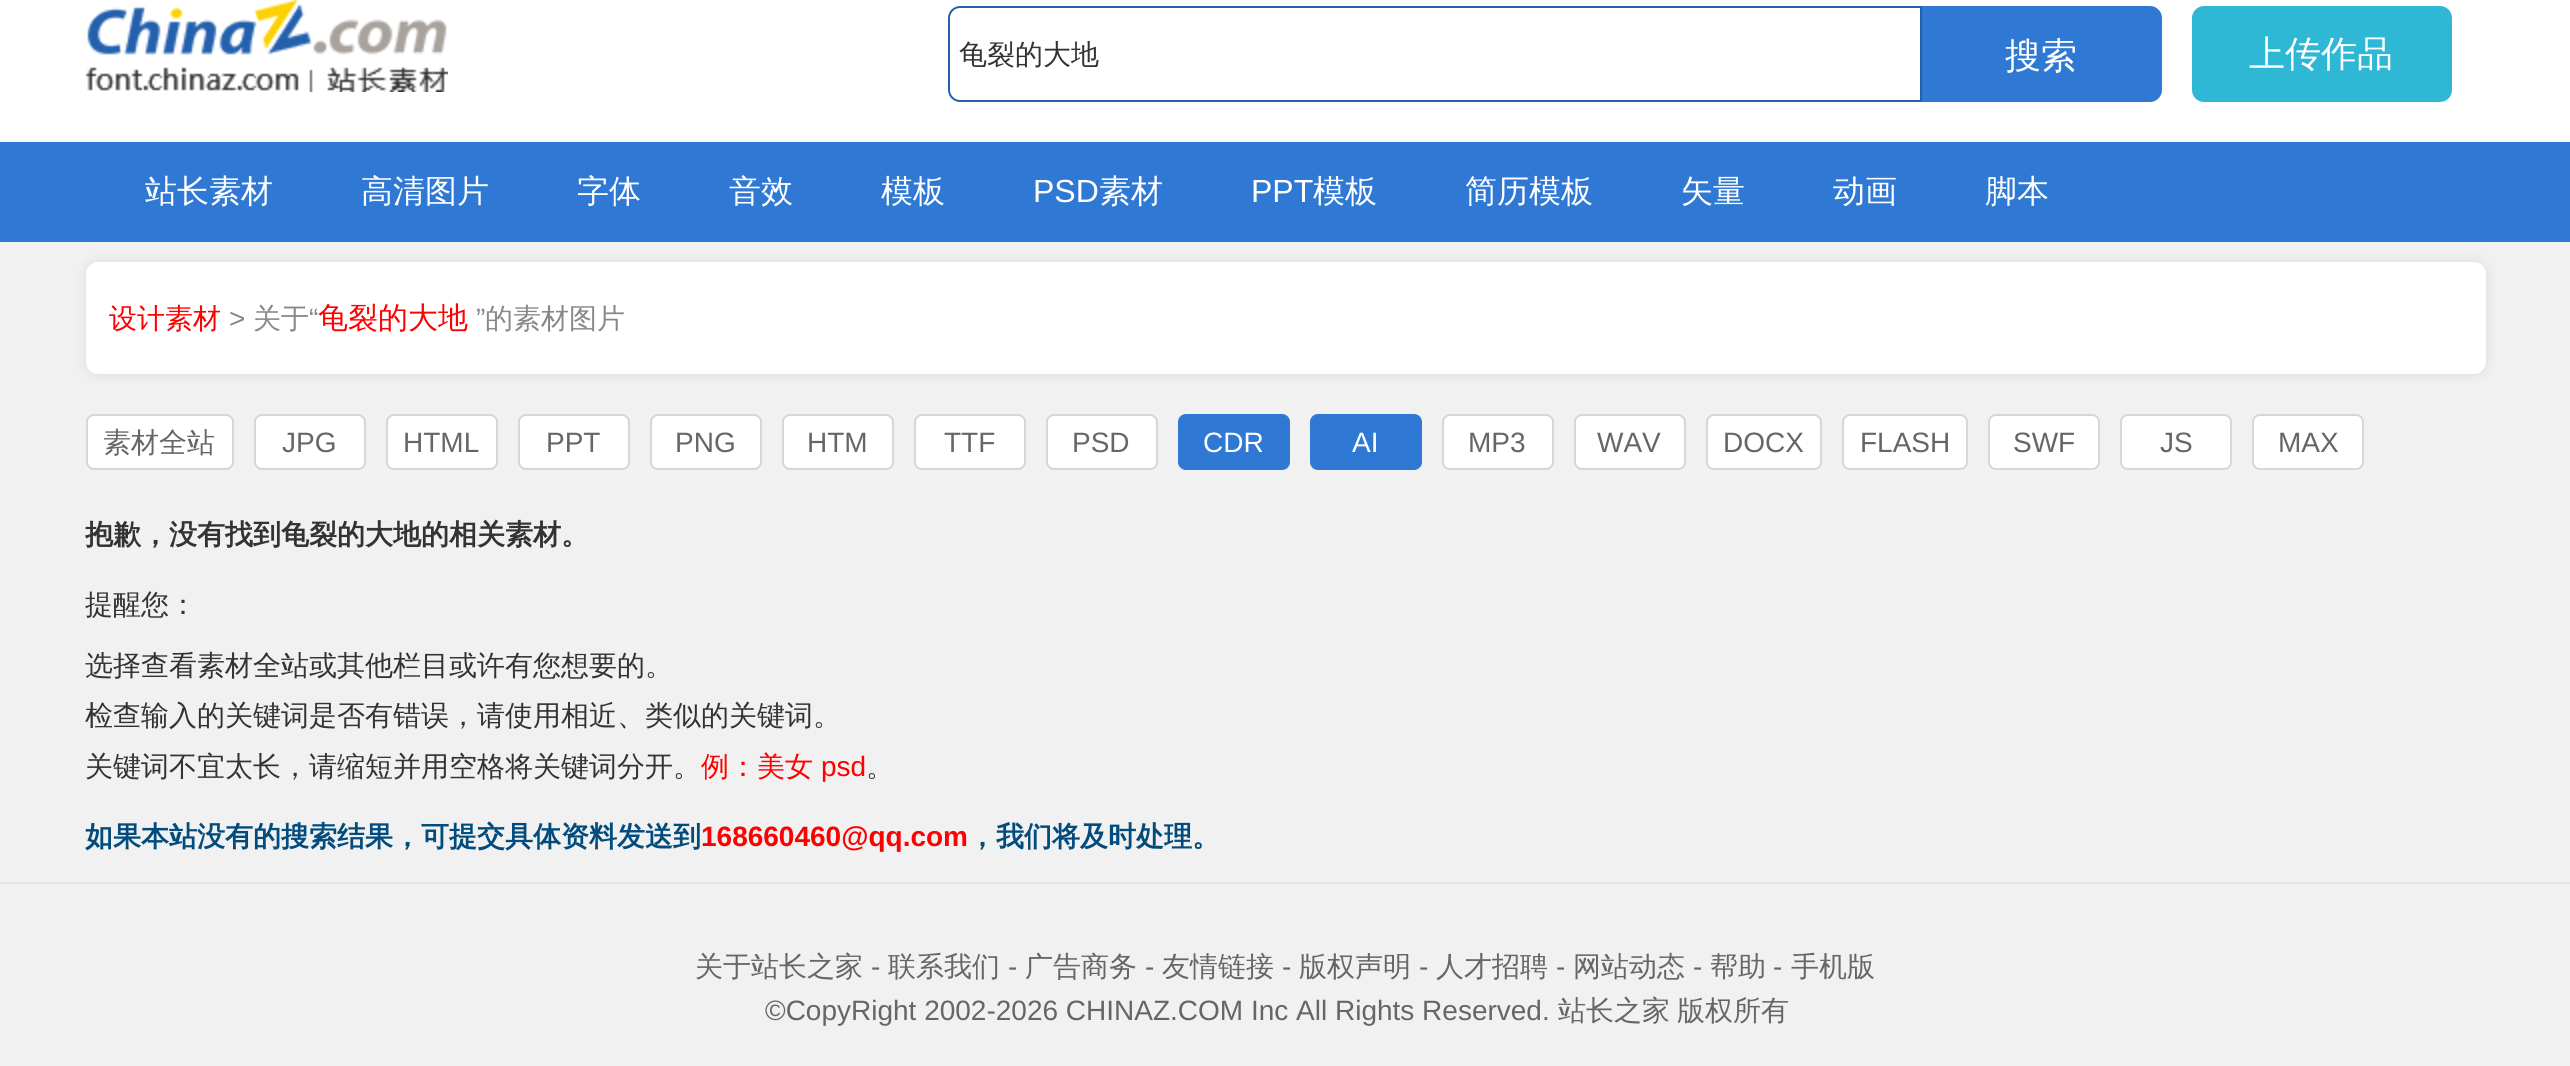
import math
import cairo


def round_path(ctx, x, y, w, h, r):
	ctx.new_sub_path()
	for i, (u, v) in enumerate([(x + w - r, y + h - r), (x + r, y + h - r), (x + r, y + r), (x + w - r, y + r)]):
		ctx.arc(u, v, r, i * math.pi / 2, (i + 1) * math.pi / 2)
	ctx.close_path()

def blur_box(ctx, x, y, w, h, r, blur, alpha):
	ctx.push_group_with_content(cairo.CONTENT_ALPHA)
	ctx.set_operator(cairo.OPERATOR_SOURCE)
	for i in range(15, -16, -2):
		e = blur * i / 6
		if min(w, h) + 2 * e > 0:
			ctx.set_source_rgba(0, 0, 0, alpha * math.erfc((i - 1) / 8.5) / 2)
			round_path(ctx, x - e, y - e, w + 2 * e, h + 2 * e, max(0, min(r + e + blur * .6, min(w, h) / 2 + e)))
			ctx.fill()
	ctx.mask(ctx.pop_group())

def paste(ctx, path, x, y, w, h):
	ctx.save()
	ctx.set_source_surface(cairo.ImageSurface.create_from_png(path), x, y)
	ctx.rectangle(x, y, w, h)
	ctx.fill()
	ctx.restore()

def draw(ctx):
	ctx.set_source_rgb(1, 1, 1)
	ctx.paint()
	paste(ctx, 'media/1.png', 86, 0, 362, 92)
	ctx.new_path()
	ctx.move_to(960, 7)
	ctx.line_to(1921, 7)
	ctx.line_to(1921, 101)
	ctx.line_to(960, 101)
	ctx.curve_to(954, 101, 949, 96, 949, 90)
	ctx.line_to(949, 18)
	ctx.curve_to(949, 12, 954, 7, 960, 7)
	ctx.close_path()
	ctx.set_source_rgb(0.137, 0.38, 0.678)
	ctx.stroke()
	ctx.select_font_face('WenQuanYi Zen Hei Medium')
	ctx.set_font_size(28)
	ctx.set_source_rgb(0.2, 0.2, 0.2)
	ctx.move_to(959, 64)
	ctx.show_text('龟裂的大地')
	ctx.set_source_rgb(0.184, 0.475, 0.835)
	ctx.new_path()
	ctx.move_to(1922, 6)
	ctx.line_to(2150, 6)
	ctx.curve_to(2156.5, 6, 2162, 11.5, 2162, 18)
	ctx.line_to(2162, 90)
	ctx.curve_to(2162, 96.5, 2156.5, 102, 2150, 102)
	ctx.line_to(1922, 102)
	ctx.close_path()
	ctx.fill()
	ctx.set_font_size(36)
	ctx.set_source_rgb(1, 1, 1)
	ctx.move_to(2005, 68)
	ctx.show_text('搜索')
	ctx.set_source_rgb(0.184, 0.722, 0.835)
	round_path(ctx, 2192, 6, 260, 96, 12)
	ctx.fill()
	ctx.set_source_rgb(1, 1, 1)
	ctx.move_to(2249, 66)
	ctx.show_text('上传作品')
	ctx.set_source_rgb(0.184, 0.475, 0.835)
	ctx.rectangle(0, 142, 2570, 100)
	ctx.fill()
	ctx.set_font_size(32)
	ctx.set_source_rgb(1, 1, 1)
	for x, y, s in [
		(145, 202, '站长素材'),
		(361, 202, '高清图片'),
		(577, 202, '字体'),
		(729, 202, '音效'),
		(881, 202, '模板'),
	]:
		ctx.move_to(x, y)
		ctx.show_text(s)
	ctx.select_font_face('Liberation Sans')
	ctx.move_to(1033, 202)
	ctx.show_text('PSD')
	ctx.select_font_face('WenQuanYi Zen Hei Medium')
	ctx.move_to(1099, 202)
	ctx.show_text('素材')
	ctx.select_font_face('Liberation Sans')
	ctx.move_to(1251, 202)
	ctx.show_text('PPT')
	ctx.select_font_face('WenQuanYi Zen Hei Medium')
	for x, y, s in [
		(1313, 202, '模板'),
		(1465, 202, '简历模板'),
		(1681, 202, '矢量'),
		(1833, 202, '动画'),
		(1985, 202, '脚本'),
	]:
		ctx.move_to(x, y)
		ctx.show_text(s)
	ctx.set_source_rgb(0.945, 0.945, 0.945)
	ctx.rectangle(0, 242, 2570, 824)
	ctx.fill()
	ctx.set_source_rgb(0.875, 0.878, 0.882)
	blur_box(ctx, 84, 260, 2404, 116, 14, 5, 1)
	ctx.set_source_rgb(1, 1, 1)
	round_path(ctx, 86, 262, 2400, 112, 12)
	ctx.fill()
	ctx.set_font_size(28)
	ctx.set_source_rgb(1, 0, 0)
	ctx.move_to(109, 328)
	ctx.show_text('设计素材')
	ctx.select_font_face('Liberation Sans')
	ctx.set_source_rgb(0.533, 0.533, 0.533)
	ctx.move_to(229, 328)
	ctx.show_text('>')
	ctx.select_font_face('WenQuanYi Zen Hei Medium')
	ctx.move_to(253, 328)
	ctx.show_text('关于')
	ctx.select_font_face('Liberation Sans')
	ctx.move_to(309, 328)
	ctx.show_text('“')
	ctx.select_font_face('WenQuanYi Zen Hei Medium')
	ctx.set_font_size(30)
	ctx.set_source_rgb(1, 0, 0)
	ctx.move_to(318, 328)
	ctx.show_text('龟裂的大地')
	ctx.select_font_face('Liberation Sans')
	ctx.set_font_size(28)
	ctx.set_source_rgb(0.533, 0.533, 0.533)
	ctx.move_to(476, 328)
	ctx.show_text('”')
	ctx.select_font_face('WenQuanYi Zen Hei Medium')
	ctx.move_to(485, 328)
	ctx.show_text('的素材图片')
	ctx.set_source_rgb(1, 1, 1)
	round_path(ctx, 87, 415, 146, 54, 7)
	ctx.fill_preserve()
	ctx.set_source_rgb(0.843, 0.843, 0.843)
	ctx.stroke()
	ctx.set_source_rgb(0.4, 0.4, 0.4)
	ctx.move_to(103, 452)
	ctx.show_text('素材全站')
	ctx.set_source_rgb(1, 1, 1)
	round_path(ctx, 255, 415, 110, 54, 7)
	ctx.fill_preserve()
	ctx.set_source_rgb(0.843, 0.843, 0.843)
	ctx.stroke()
	ctx.select_font_face('Liberation Sans')
	ctx.set_source_rgb(0.4, 0.4, 0.4)
	ctx.move_to(282, 452)
	ctx.show_text('JPG')
	ctx.set_source_rgb(1, 1, 1)
	round_path(ctx, 387, 415, 110, 54, 7)
	ctx.fill_preserve()
	ctx.set_source_rgb(0.843, 0.843, 0.843)
	ctx.stroke()
	ctx.set_source_rgb(0.4, 0.4, 0.4)
	ctx.move_to(403, 452)
	ctx.show_text('HTML')
	ctx.set_source_rgb(1, 1, 1)
	round_path(ctx, 519, 415, 110, 54, 7)
	ctx.fill_preserve()
	ctx.set_source_rgb(0.843, 0.843, 0.843)
	ctx.stroke()
	ctx.set_source_rgb(0.4, 0.4, 0.4)
	ctx.move_to(546, 452)
	ctx.show_text('PPT')
	ctx.set_source_rgb(1, 1, 1)
	round_path(ctx, 651, 415, 110, 54, 7)
	ctx.fill_preserve()
	ctx.set_source_rgb(0.843, 0.843, 0.843)
	ctx.stroke()
	ctx.set_source_rgb(0.4, 0.4, 0.4)
	ctx.move_to(675, 452)
	ctx.show_text('PNG')
	ctx.set_source_rgb(1, 1, 1)
	round_path(ctx, 783, 415, 110, 54, 7)
	ctx.fill_preserve()
	ctx.set_source_rgb(0.843, 0.843, 0.843)
	ctx.stroke()
	ctx.set_source_rgb(0.4, 0.4, 0.4)
	ctx.move_to(807, 452)
	ctx.show_text('HTM')
	ctx.set_source_rgb(1, 1, 1)
	round_path(ctx, 915, 415, 110, 54, 7)
	ctx.fill_preserve()
	ctx.set_source_rgb(0.843, 0.843, 0.843)
	ctx.stroke()
	ctx.set_source_rgb(0.4, 0.4, 0.4)
	ctx.move_to(944, 452)
	ctx.show_text('TTF')
	ctx.set_source_rgb(1, 1, 1)
	round_path(ctx, 1047, 415, 110, 54, 7)
	ctx.fill_preserve()
	ctx.set_source_rgb(0.843, 0.843, 0.843)
	ctx.stroke()
	ctx.set_source_rgb(0.4, 0.4, 0.4)
	ctx.move_to(1072, 452)
	ctx.show_text('PSD')
	ctx.set_source_rgb(0.184, 0.475, 0.835)
	round_path(ctx, 1179, 415, 110, 54, 7)
	ctx.fill_preserve()
	ctx.stroke()
	ctx.set_source_rgb(1, 1, 1)
	ctx.move_to(1203, 452)
	ctx.show_text('CDR')
	ctx.set_source_rgb(0.184, 0.475, 0.835)
	round_path(ctx, 1311, 415, 110, 54, 7)
	ctx.fill_preserve()
	ctx.stroke()
	ctx.set_source_rgb(1, 1, 1)
	ctx.move_to(1352, 452)
	ctx.show_text('AI')
	round_path(ctx, 1443, 415, 110, 54, 7)
	ctx.fill_preserve()
	ctx.set_source_rgb(0.843, 0.843, 0.843)
	ctx.stroke()
	ctx.set_source_rgb(0.4, 0.4, 0.4)
	ctx.move_to(1468, 452)
	ctx.show_text('MP3')
	ctx.set_source_rgb(1, 1, 1)
	round_path(ctx, 1575, 415, 110, 54, 7)
	ctx.fill_preserve()
	ctx.set_source_rgb(0.843, 0.843, 0.843)
	ctx.stroke()
	ctx.set_source_rgb(0.4, 0.4, 0.4)
	ctx.move_to(1597, 452)
	ctx.show_text('WAV')
	ctx.set_source_rgb(1, 1, 1)
	round_path(ctx, 1707, 415, 114, 54, 7)
	ctx.fill_preserve()
	ctx.set_source_rgb(0.843, 0.843, 0.843)
	ctx.stroke()
	ctx.set_source_rgb(0.4, 0.4, 0.4)
	ctx.move_to(1723, 452)
	ctx.show_text('DOCX')
	ctx.set_source_rgb(1, 1, 1)
	round_path(ctx, 1843, 415, 124, 54, 7)
	ctx.fill_preserve()
	ctx.set_source_rgb(0.843, 0.843, 0.843)
	ctx.stroke()
	ctx.set_source_rgb(0.4, 0.4, 0.4)
	ctx.move_to(1860, 452)
	ctx.show_text('FLASH')
	ctx.set_source_rgb(1, 1, 1)
	round_path(ctx, 1989, 415, 110, 54, 7)
	ctx.fill_preserve()
	ctx.set_source_rgb(0.843, 0.843, 0.843)
	ctx.stroke()
	ctx.set_source_rgb(0.4, 0.4, 0.4)
	ctx.move_to(2013, 452)
	ctx.show_text('SWF')
	ctx.set_source_rgb(1, 1, 1)
	round_path(ctx, 2121, 415, 110, 54, 7)
	ctx.fill_preserve()
	ctx.set_source_rgb(0.843, 0.843, 0.843)
	ctx.stroke()
	ctx.set_source_rgb(0.4, 0.4, 0.4)
	ctx.move_to(2160, 452)
	ctx.show_text('JS')
	ctx.set_source_rgb(1, 1, 1)
	round_path(ctx, 2253, 415, 110, 54, 7)
	ctx.fill_preserve()
	ctx.set_source_rgb(0.843, 0.843, 0.843)
	ctx.stroke()
	ctx.set_source_rgb(0.4, 0.4, 0.4)
	ctx.move_to(2278, 452)
	ctx.show_text('MAX')
	ctx.select_font_face('WenQuanYi Zen Hei', cairo.FONT_SLANT_NORMAL, cairo.FONT_WEIGHT_BOLD)
	ctx.set_source_rgb(0.2, 0.2, 0.2)
	ctx.move_to(85, 544)
	ctx.show_text('抱歉，没有找到龟裂的大地的相关素材。')
	ctx.select_font_face('WenQuanYi Zen Hei Medium')
	for x, y, s in [
		(85, 614, '提醒您：'),
		(85, 675, '选择查看素材全站或其他栏目或许有您想要的。'),
		(85, 725, '检查输入的关键词是否有错误，请使用相近、类似的关键词。'),
		(85, 776, '关键词不宜太长，请缩短并用空格将关键词分开。'),
	]:
		ctx.move_to(x, y)
		ctx.show_text(s)
	ctx.set_source_rgb(1, 0, 0)
	ctx.move_to(701, 776)
	ctx.show_text('例：美女')
	ctx.select_font_face('Liberation Sans')
	ctx.move_to(821, 776)
	ctx.show_text('psd')
	ctx.select_font_face('WenQuanYi Zen Hei Medium')
	ctx.set_source_rgb(0.2, 0.2, 0.2)
	ctx.move_to(866, 776)
	ctx.show_text('。')
	ctx.select_font_face('WenQuanYi Zen Hei', cairo.FONT_SLANT_NORMAL, cairo.FONT_WEIGHT_BOLD)
	ctx.set_source_rgb(0.008, 0.298, 0.49)
	ctx.move_to(85, 846)
	ctx.show_text('如果本站没有的搜索结果，可提交具体资料发送到')
	ctx.select_font_face('Liberation Sans', cairo.FONT_SLANT_NORMAL, cairo.FONT_WEIGHT_BOLD)
	ctx.set_source_rgb(1, 0, 0)
	ctx.move_to(701, 846)
	ctx.show_text('168660460@qq.com')
	ctx.select_font_face('WenQuanYi Zen Hei', cairo.FONT_SLANT_NORMAL, cairo.FONT_WEIGHT_BOLD)
	ctx.set_source_rgb(0.008, 0.298, 0.49)
	ctx.move_to(968, 846)
	ctx.show_text('，我们将及时处理。')
	ctx.set_source_rgb(0.898, 0.898, 0.898)
	ctx.rectangle(0, 882, 2570, 2)
	ctx.fill()
	ctx.select_font_face('WenQuanYi Zen Hei Medium')
	ctx.set_source_rgb(0.4, 0.4, 0.4)
	ctx.move_to(695, 976)
	ctx.show_text('关于站长之家')
	ctx.select_font_face('Liberation Sans')
	ctx.move_to(871, 976)
	ctx.show_text('-')
	ctx.select_font_face('WenQuanYi Zen Hei Medium')
	ctx.move_to(888, 976)
	ctx.show_text('联系我们')
	ctx.select_font_face('Liberation Sans')
	ctx.move_to(1008, 976)
	ctx.show_text('-')
	ctx.select_font_face('WenQuanYi Zen Hei Medium')
	ctx.move_to(1025, 976)
	ctx.show_text('广告商务')
	ctx.select_font_face('Liberation Sans')
	ctx.move_to(1145, 976)
	ctx.show_text('-')
	ctx.select_font_face('WenQuanYi Zen Hei Medium')
	ctx.move_to(1162, 976)
	ctx.show_text('友情链接')
	ctx.select_font_face('Liberation Sans')
	ctx.move_to(1282, 976)
	ctx.show_text('-')
	ctx.select_font_face('WenQuanYi Zen Hei Medium')
	ctx.move_to(1299, 976)
	ctx.show_text('版权声明')
	ctx.select_font_face('Liberation Sans')
	ctx.move_to(1419, 976)
	ctx.show_text('-')
	ctx.select_font_face('WenQuanYi Zen Hei Medium')
	ctx.move_to(1436, 976)
	ctx.show_text('人才招聘')
	ctx.select_font_face('Liberation Sans')
	ctx.move_to(1556, 976)
	ctx.show_text('-')
	ctx.select_font_face('WenQuanYi Zen Hei Medium')
	ctx.move_to(1573, 976)
	ctx.show_text('网站动态')
	ctx.select_font_face('Liberation Sans')
	ctx.move_to(1693, 976)
	ctx.show_text('-')
	ctx.select_font_face('WenQuanYi Zen Hei Medium')
	ctx.move_to(1710, 976)
	ctx.show_text('帮助')
	ctx.select_font_face('Liberation Sans')
	ctx.move_to(1773, 976)
	ctx.show_text('-')
	ctx.select_font_face('WenQuanYi Zen Hei Medium')
	ctx.move_to(1791, 976)
	ctx.show_text('手机版')
	ctx.select_font_face('Liberation Sans')
	ctx.move_to(765, 1020)
	ctx.show_text('©CopyRight 2002-2026 CHINAZ.COM Inc All Rights Reserved.')
	ctx.select_font_face('WenQuanYi Zen Hei Medium')
	ctx.move_to(1558, 1020)
	ctx.show_text('站长之家')
	ctx.move_to(1677, 1020)
	ctx.show_text('版权所有')


surface = cairo.ImageSurface(cairo.FORMAT_RGB24, 2570, 1066)
ctx = cairo.Context(surface)
options = cairo.FontOptions()
options.set_hint_metrics(cairo.HINT_METRICS_OFF)
options.set_hint_style(cairo.HINT_STYLE_NONE)
ctx.set_font_options(options)
ctx.set_miter_limit(4)
draw(ctx)
surface.write_to_png('image.png')
